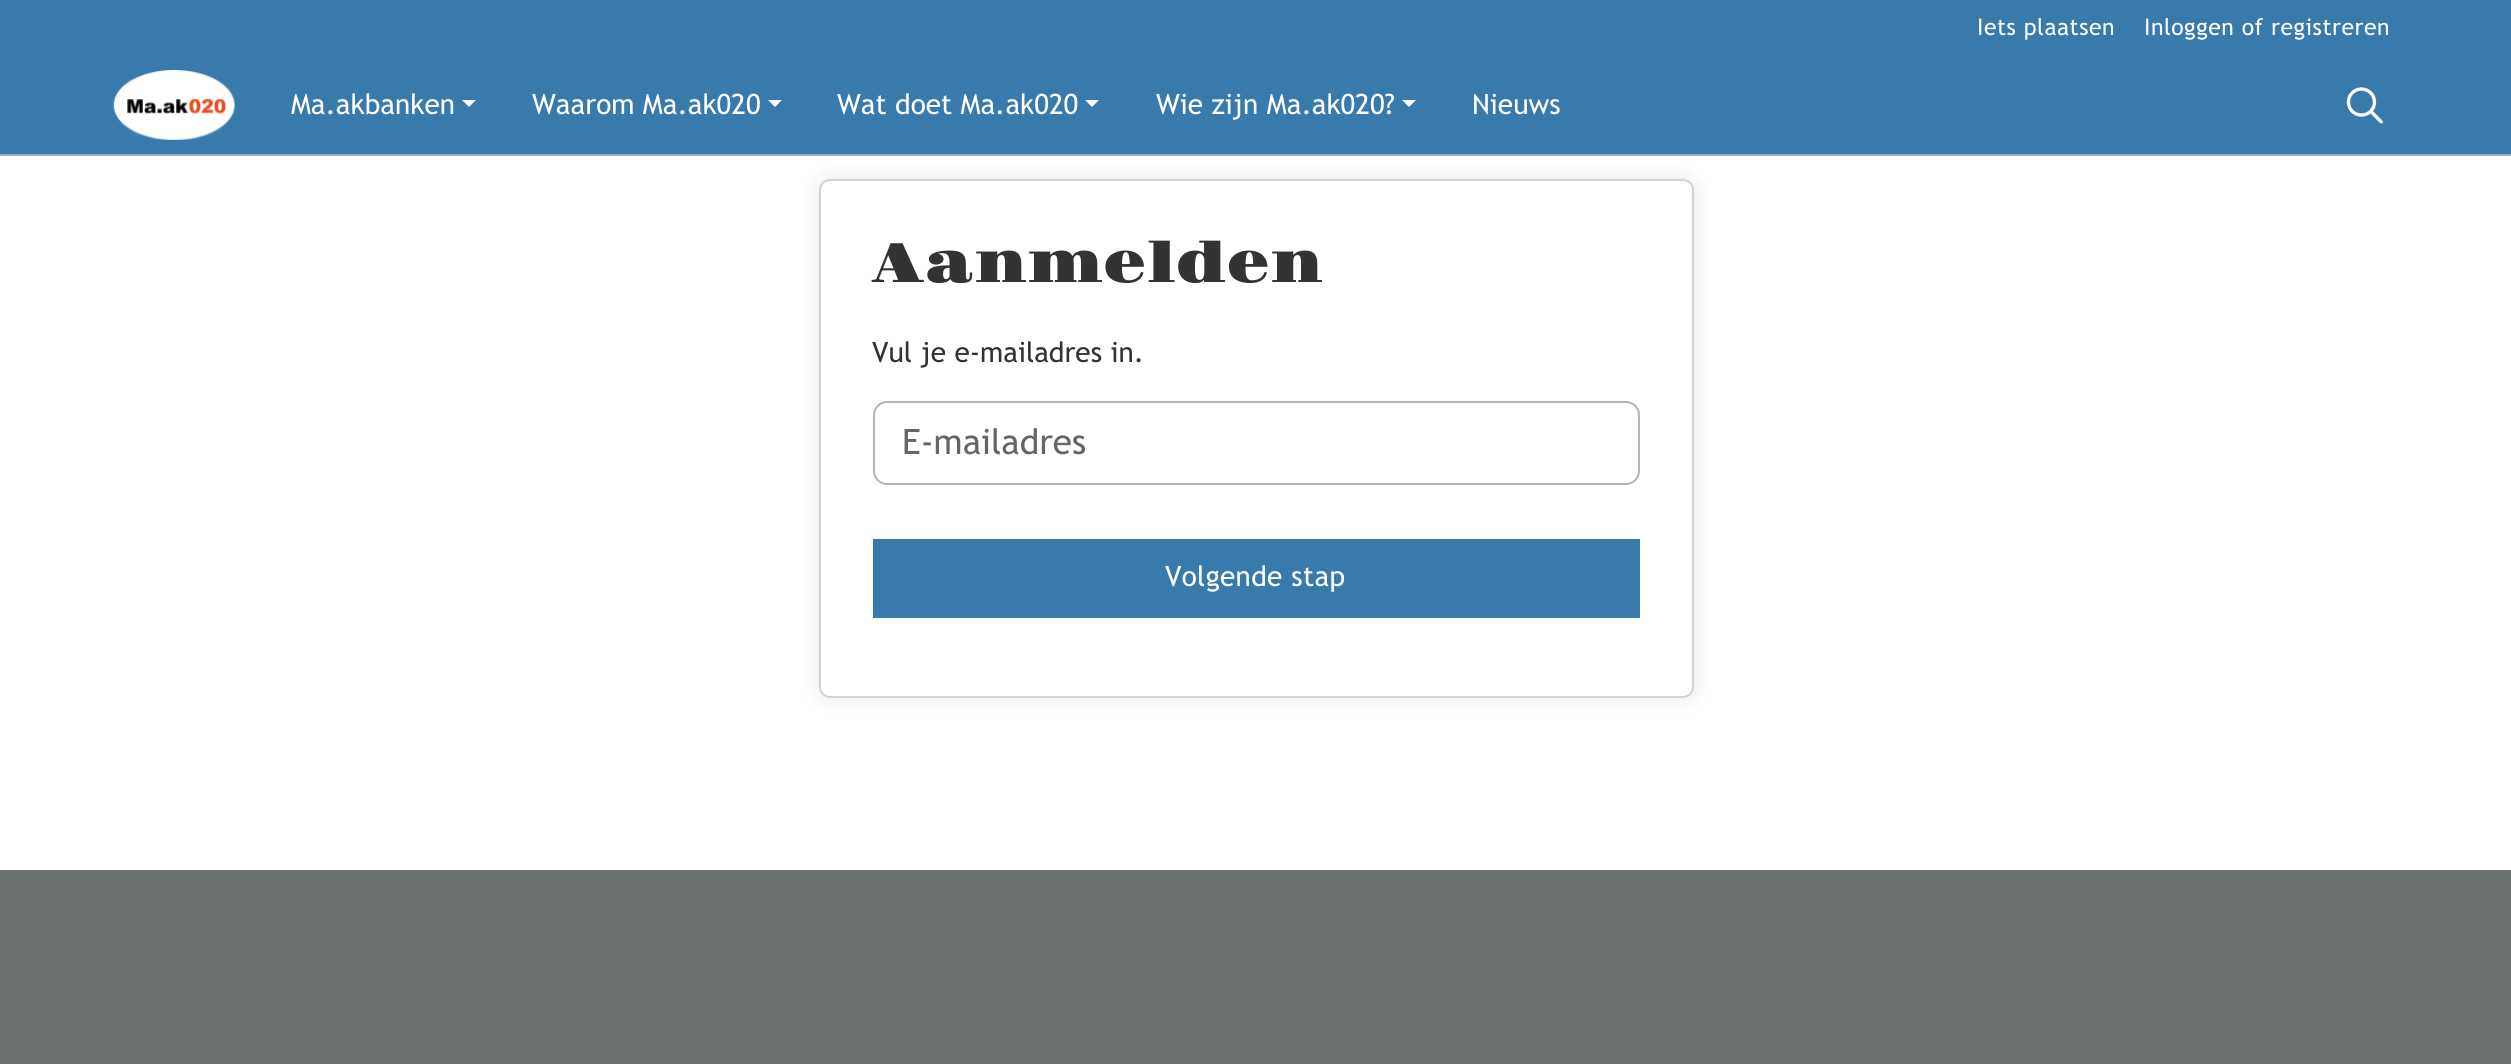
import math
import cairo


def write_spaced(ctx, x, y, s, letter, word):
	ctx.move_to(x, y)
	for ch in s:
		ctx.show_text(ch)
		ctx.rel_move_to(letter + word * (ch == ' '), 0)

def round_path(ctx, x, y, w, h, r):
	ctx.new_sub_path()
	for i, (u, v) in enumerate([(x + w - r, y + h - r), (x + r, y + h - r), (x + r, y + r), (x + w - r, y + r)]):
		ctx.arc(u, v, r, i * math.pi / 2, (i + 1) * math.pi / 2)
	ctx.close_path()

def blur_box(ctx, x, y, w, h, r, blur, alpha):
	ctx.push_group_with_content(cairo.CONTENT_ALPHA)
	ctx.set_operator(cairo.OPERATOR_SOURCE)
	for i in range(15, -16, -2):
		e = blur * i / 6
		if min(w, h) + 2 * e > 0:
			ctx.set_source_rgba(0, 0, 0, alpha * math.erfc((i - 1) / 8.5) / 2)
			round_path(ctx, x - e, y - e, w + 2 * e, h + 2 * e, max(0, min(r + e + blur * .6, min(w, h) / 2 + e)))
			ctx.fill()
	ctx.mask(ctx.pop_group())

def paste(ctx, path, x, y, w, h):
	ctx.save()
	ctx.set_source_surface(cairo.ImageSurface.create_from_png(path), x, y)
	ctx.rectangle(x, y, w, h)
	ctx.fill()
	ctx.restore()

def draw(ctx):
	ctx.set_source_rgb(1, 1, 1)
	ctx.paint()
	ctx.save()
	ctx.set_fill_rule(cairo.FILL_RULE_EVEN_ODD)
	ctx.new_path()
	ctx.move_to(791, 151)
	ctx.line_to(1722, 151)
	ctx.line_to(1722, 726)
	ctx.line_to(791, 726)
	ctx.close_path()
	ctx.move_to(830, 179)
	ctx.line_to(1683, 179)
	ctx.curve_to(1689, 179, 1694, 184, 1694, 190)
	ctx.line_to(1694, 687)
	ctx.curve_to(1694, 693, 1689, 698, 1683, 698)
	ctx.line_to(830, 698)
	ctx.curve_to(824, 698, 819, 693, 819, 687)
	ctx.line_to(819, 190)
	ctx.curve_to(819, 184, 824, 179, 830, 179)
	ctx.close_path()
	ctx.clip()
	ctx.set_source_rgb(0, 0, 0)
	blur_box(ctx, 819, 179, 875, 519, 11, 9, 0.1)
	ctx.restore()
	ctx.set_source_rgb(0.22, 0.478, 0.675)
	ctx.rectangle(0, 0, 2511, 154)
	ctx.fill()
	ctx.select_font_face('Trebuchet MS')
	ctx.set_font_size(23)
	ctx.set_source_rgb(1, 1, 1)
	write_spaced(ctx, 1977, 35, 'Iets plaatsen', 0.5, 0)
	write_spaced(ctx, 2144, 35, 'Inloggen of registreren', 0.5, 0)
	ctx.set_source_rgb(0.667, 0.667, 0.667)
	ctx.rectangle(0, 154, 2511, 2)
	ctx.fill()
	paste(ctx, 'media/1.png', 113, 70, 122, 70)
	ctx.set_font_size(28)
	ctx.set_source_rgb(1, 1, 1)
	ctx.move_to(291, 114)
	ctx.show_text('Ma.akbanken')
	ctx.new_path()
	ctx.move_to(462, 100)
	ctx.line_to(476, 100)
	ctx.line_to(469, 107)
	ctx.close_path()
	ctx.fill()
	ctx.move_to(532, 114)
	ctx.show_text('Waarom Ma.ak020')
	ctx.new_path()
	ctx.move_to(768, 100)
	ctx.line_to(782, 100)
	ctx.line_to(775, 107)
	ctx.close_path()
	ctx.fill()
	ctx.move_to(837, 114)
	ctx.show_text('Wat doet Ma.ak020')
	ctx.new_path()
	ctx.move_to(1085, 100)
	ctx.line_to(1099, 100)
	ctx.line_to(1092, 107)
	ctx.close_path()
	ctx.fill()
	ctx.move_to(1156, 114)
	ctx.show_text('Wie zijn Ma.ak020?')
	ctx.new_path()
	ctx.move_to(1402, 100)
	ctx.line_to(1416, 100)
	ctx.line_to(1409, 107)
	ctx.close_path()
	ctx.fill()
	ctx.move_to(1472, 114)
	ctx.show_text('Nieuws')
	paste(ctx, 'media/2.png', 2346, 87, 37, 37)
	round_path(ctx, 820, 180, 873, 517, 10)
	ctx.set_source_rgb(0.824, 0.824, 0.824)
	ctx.stroke()
	ctx.select_font_face('Gravitas One')
	ctx.set_font_size(56)
	ctx.set_source_rgb(0.2, 0.2, 0.2)
	ctx.move_to(872, 282)
	ctx.show_text('Aanmelden')
	ctx.select_font_face('Trebuchet MS')
	ctx.set_font_size(28)
	ctx.move_to(872, 362)
	ctx.show_text('Vul je e-mailadres in.')
	round_path(ctx, 874, 402, 765, 82, 13)
	ctx.set_source_rgb(0.678, 0.71, 0.741)
	ctx.stroke()
	ctx.set_font_size(35)
	ctx.set_source_rgb(0.4, 0.4, 0.4)
	ctx.move_to(902, 454)
	ctx.show_text('E-mailadres')
	ctx.set_source_rgb(0.22, 0.478, 0.675)
	ctx.rectangle(873, 539, 767, 79)
	ctx.fill()
	ctx.set_font_size(28)
	ctx.set_source_rgb(1, 1, 1)
	write_spaced(ctx, 1165, 586, 'Volgende stap', 0.3, 0)
	ctx.set_source_rgb(0.42, 0.439, 0.443)
	ctx.rectangle(0, 870, 2511, 194)
	ctx.fill()


surface = cairo.ImageSurface(cairo.FORMAT_RGB24, 2511, 1064)
ctx = cairo.Context(surface)
options = cairo.FontOptions()
options.set_hint_metrics(cairo.HINT_METRICS_OFF)
options.set_hint_style(cairo.HINT_STYLE_NONE)
ctx.set_font_options(options)
ctx.set_miter_limit(4)
draw(ctx)
surface.write_to_png('image.png')
